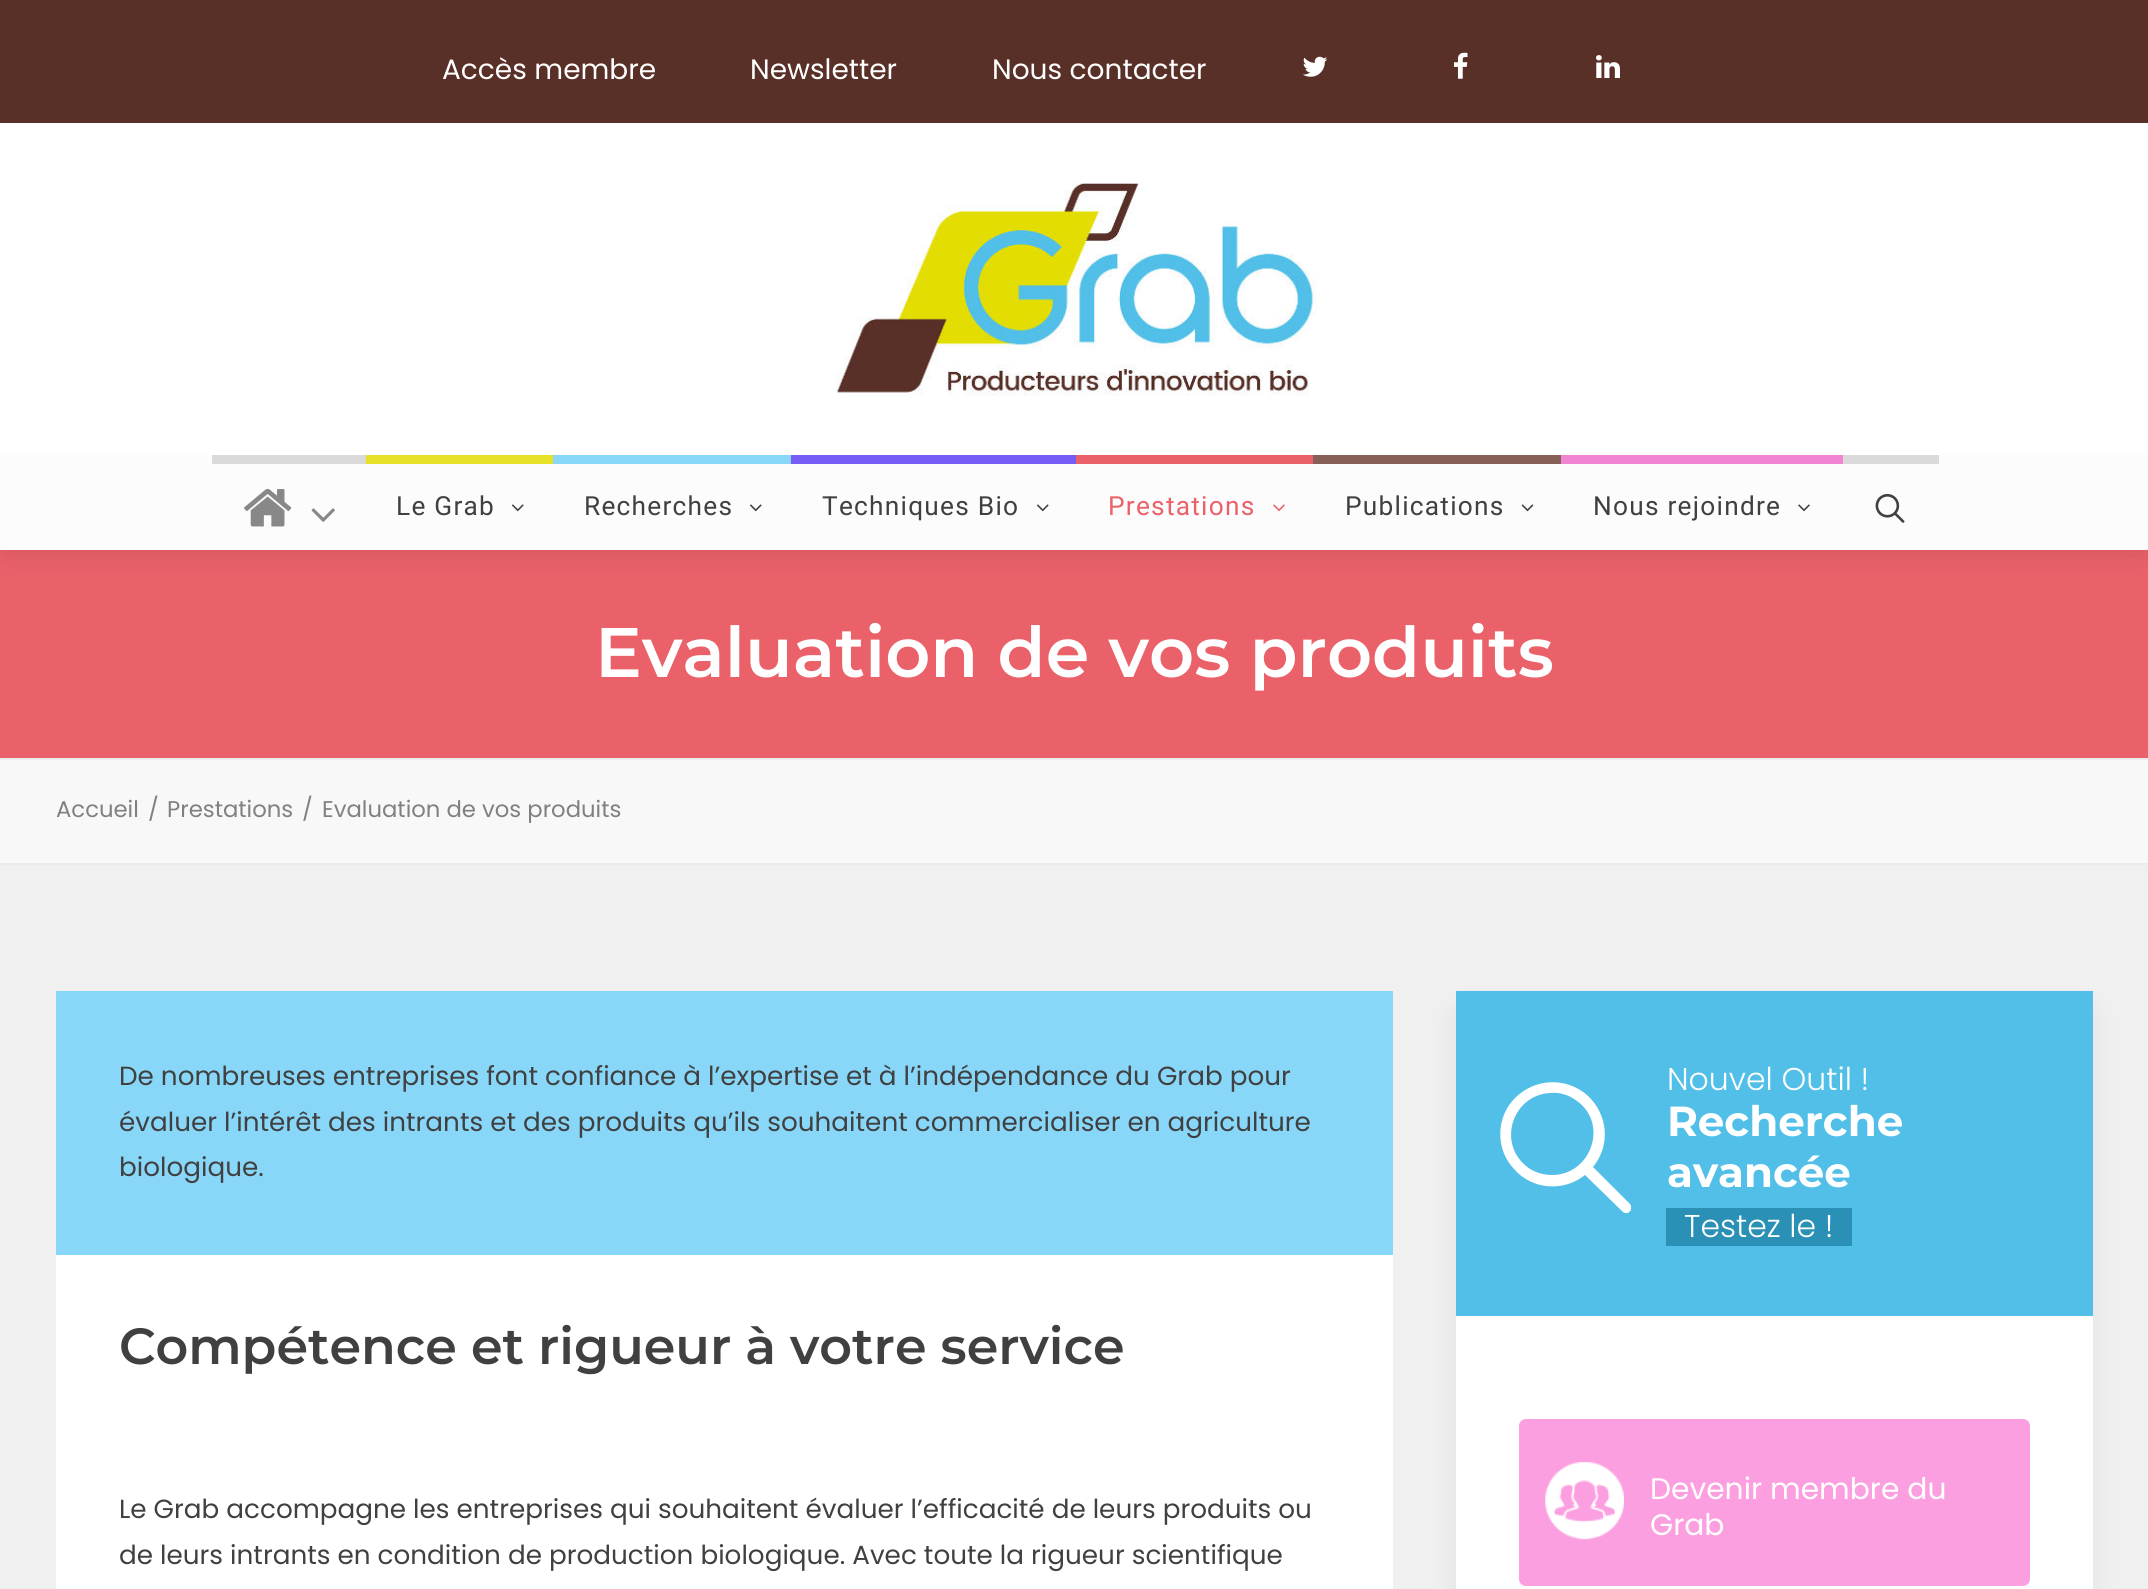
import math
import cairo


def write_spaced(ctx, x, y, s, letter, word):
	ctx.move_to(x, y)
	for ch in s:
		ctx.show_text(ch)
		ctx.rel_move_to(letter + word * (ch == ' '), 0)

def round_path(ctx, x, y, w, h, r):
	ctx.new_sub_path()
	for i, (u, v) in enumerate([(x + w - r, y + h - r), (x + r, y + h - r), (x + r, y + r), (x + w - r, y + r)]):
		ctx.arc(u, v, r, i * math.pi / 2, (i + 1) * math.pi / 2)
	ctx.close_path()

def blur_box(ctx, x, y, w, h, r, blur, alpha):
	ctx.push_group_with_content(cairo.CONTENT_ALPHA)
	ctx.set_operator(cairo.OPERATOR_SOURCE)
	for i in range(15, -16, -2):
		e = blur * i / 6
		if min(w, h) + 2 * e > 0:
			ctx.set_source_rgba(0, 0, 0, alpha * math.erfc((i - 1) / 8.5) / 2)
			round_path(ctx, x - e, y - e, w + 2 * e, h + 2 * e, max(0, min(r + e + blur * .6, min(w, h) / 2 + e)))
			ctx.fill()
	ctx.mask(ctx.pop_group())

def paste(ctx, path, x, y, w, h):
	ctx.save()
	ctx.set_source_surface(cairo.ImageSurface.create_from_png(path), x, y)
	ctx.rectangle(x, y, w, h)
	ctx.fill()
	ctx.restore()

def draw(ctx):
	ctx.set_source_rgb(0.941, 0.941, 0.941)
	ctx.paint()
	ctx.set_source_rgb(0.345, 0.188, 0.153)
	ctx.rectangle(0, 0, 2148, 123)
	ctx.fill()
	ctx.select_font_face('Poppins')
	ctx.set_font_size(28)
	ctx.set_source_rgb(1, 1, 1)
	for x, y, s in [
		(442, 79, 'Accès membre'),
		(750, 79, 'Newsletter'),
		(992, 79, 'Nous contacter'),
	]:
		ctx.move_to(x, y)
		ctx.show_text(s)
	paste(ctx, 'media/1.png', 1303, 56, 25, 21)
	paste(ctx, 'media/2.png', 1453, 52, 15, 27)
	paste(ctx, 'media/3.png', 1596, 55, 24, 23)
	ctx.set_source_rgb(0.918, 0.38, 0.416)
	ctx.rectangle(0, 550, 2148, 208)
	ctx.fill()
	ctx.set_source_rgb(0, 0, 0)
	blur_box(ctx, 7, 483, 2135, 67, 0, 16, 0.13)
	ctx.set_source_rgb(1, 1, 1)
	ctx.rectangle(0, 123, 2148, 332)
	ctx.fill()
	paste(ctx, 'media/4.png', 836, 183, 481, 213)
	ctx.set_source_rgb(0.988, 0.988, 0.988)
	ctx.rectangle(0, 455, 2148, 95)
	ctx.fill()
	ctx.set_source_rgb(0.855, 0.855, 0.855)
	ctx.rectangle(212, 455, 154, 9)
	ctx.fill()
	paste(ctx, 'media/5.png', 244, 488, 48, 39)
	paste(ctx, 'media/6.png', 311, 508, 24, 14)
	ctx.set_source_rgb(0.902, 0.878, 0.153)
	ctx.rectangle(366, 455, 187, 9)
	ctx.fill()
	ctx.select_font_face('Roboto')
	ctx.set_font_size(26.25)
	ctx.set_source_rgb(0.251, 0.251, 0.251)
	write_spaced(ctx, 396, 515, 'Le Grab', 1.25, 0)
	paste(ctx, 'media/7.png', 511, 504, 13, 8)
	ctx.set_source_rgb(0.533, 0.843, 0.976)
	ctx.rectangle(553, 455, 238, 9)
	ctx.fill()
	ctx.set_source_rgb(0.251, 0.251, 0.251)
	write_spaced(ctx, 584, 515, 'Recherches', 1.25, 0)
	paste(ctx, 'media/7.png', 749, 504, 13, 8)
	ctx.set_source_rgb(0.463, 0.365, 0.961)
	ctx.rectangle(791, 455, 285, 9)
	ctx.fill()
	ctx.set_source_rgb(0.251, 0.251, 0.251)
	write_spaced(ctx, 822, 515, 'Techniques Bio', 1.25, 0)
	paste(ctx, 'media/7.png', 1036, 504, 13, 8)
	ctx.set_source_rgb(0.918, 0.38, 0.416)
	ctx.rectangle(1076, 455, 237, 9)
	ctx.fill()
	write_spaced(ctx, 1108, 515, 'Prestations', 1.25, 0)
	paste(ctx, 'media/8.png', 1273, 504, 12, 8)
	ctx.set_source_rgb(0.525, 0.373, 0.341)
	ctx.rectangle(1313, 455, 248, 9)
	ctx.fill()
	ctx.set_source_rgb(0.251, 0.251, 0.251)
	write_spaced(ctx, 1345, 515, 'Publications', 1.25, 0)
	paste(ctx, 'media/9.png', 1521, 504, 13, 8)
	ctx.set_source_rgb(0.949, 0.522, 0.824)
	ctx.rectangle(1561, 455, 282, 9)
	ctx.fill()
	ctx.set_source_rgb(0.251, 0.251, 0.251)
	write_spaced(ctx, 1593, 515, 'Nous rejoindre', 1.25, 0)
	paste(ctx, 'media/10.png', 1798, 504, 12, 8)
	ctx.set_source_rgb(0.855, 0.855, 0.855)
	ctx.rectangle(1843, 455, 96, 9)
	ctx.fill()
	paste(ctx, 'media/11.png', 1875, 493, 30, 30)
	ctx.select_font_face('Montserrat SemiBold')
	ctx.set_font_size(70)
	ctx.set_source_rgb(1, 1, 1)
	ctx.move_to(595, 677)
	ctx.show_text('Evaluation de vos produits')
	ctx.set_source_rgb(0.969, 0.969, 0.969)
	ctx.rectangle(0, 760, 2148, 103)
	ctx.fill()
	ctx.set_source_rgb(0.918, 0.918, 0.918)
	ctx.rectangle(0, 758, 2148, 2)
	ctx.rectangle(0, 863, 2148, 2)
	ctx.fill()
	ctx.select_font_face('Poppins')
	ctx.set_font_size(22.75)
	ctx.set_source_rgb(0.502, 0.502, 0.502)
	for x, y, s in [
		(56, 817, 'Accueil'),
		(148, 817, '/'),
		(167, 817, 'Prestations'),
		(302, 817, '/'),
		(322, 817, 'Evaluation de vos produits'),
	]:
		ctx.move_to(x, y)
		ctx.show_text(s)
	ctx.set_source_rgb(0.533, 0.843, 0.976)
	ctx.rectangle(56, 991, 1337, 264)
	ctx.fill()
	ctx.set_font_size(26.25)
	ctx.set_source_rgb(0.251, 0.251, 0.251)
	for x, y, s in [
		(119, 1085, 'De nombreuses entreprises font confiance à l’expertise et à l’indépendance du Grab pour'),
		(119, 1131, 'évaluer l’intérêt des intrants et des produits qu’ils souhaitent commercialiser en agriculture'),
		(119, 1176, 'biologique.'),
	]:
		ctx.move_to(x, y)
		ctx.show_text(s)
	ctx.set_source_rgb(1, 1, 1)
	ctx.rectangle(56, 1255, 1337, 334)
	ctx.fill()
	ctx.select_font_face('Montserrat SemiBold')
	ctx.set_font_size(50.75)
	ctx.set_source_rgb(0.251, 0.251, 0.251)
	ctx.move_to(119, 1364)
	ctx.show_text('Compétence et rigueur à votre service')
	ctx.select_font_face('Poppins')
	ctx.set_font_size(26.25)
	ctx.move_to(119, 1518)
	ctx.show_text('Le Grab accompagne les entreprises qui souhaitent évaluer l’efficacité de leurs produits ou')
	ctx.move_to(119, 1564)
	ctx.show_text('de leurs intrants en condition de production biologique. Avec toute la rigueur scientifique')
	ctx.set_source_rgb(0, 0, 0)
	blur_box(ctx, 1463, 1015, 623, 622, 0, 16, 0.1)
	ctx.set_source_rgb(1, 1, 1)
	ctx.rectangle(1456, 1316, 637, 273)
	ctx.fill()
	ctx.set_source_rgb(0.318, 0.749, 0.91)
	ctx.rectangle(1456, 991, 637, 325)
	ctx.fill()
	ctx.save()
	ctx.rectangle(1500, 1082, 131, 131)
	ctx.clip()
	ctx.set_source_rgb(1, 1, 1)
	ctx.new_path()
	ctx.move_to(1630, 1204)
	ctx.line_to(1593, 1167)
	ctx.curve_to(1611, 1145, 1608, 1114, 1587, 1095)
	ctx.curve_to(1566, 1077, 1535, 1078, 1515, 1098)
	ctx.curve_to(1496, 1117, 1495, 1149, 1514, 1169)
	ctx.curve_to(1532, 1190, 1564, 1192, 1585, 1175)
	ctx.line_to(1623, 1212)
	ctx.curve_to(1628, 1216, 1634, 1209, 1630, 1204)
	ctx.close_path()
	ctx.move_to(1552, 1175)
	ctx.curve_to(1543, 1175, 1533, 1172, 1526, 1166)
	ctx.curve_to(1497, 1142, 1513, 1095, 1550, 1093)
	ctx.curve_to(1560, 1092, 1569, 1095, 1577, 1101)
	ctx.curve_to(1609, 1124, 1591, 1175, 1552, 1175)
	ctx.close_path()
	ctx.fill()
	ctx.restore()
	ctx.select_font_face('Poppins Light')
	ctx.set_font_size(31.5)
	ctx.set_source_rgb(1, 1, 1)
	ctx.move_to(1667, 1090)
	ctx.show_text('Nouvel Outil !')
	ctx.select_font_face('Montserrat', cairo.FONT_SLANT_NORMAL, cairo.FONT_WEIGHT_BOLD)
	ctx.set_font_size(42)
	ctx.move_to(1667, 1136)
	ctx.show_text('Recherche')
	ctx.move_to(1667, 1187)
	ctx.show_text('avancée')
	ctx.set_source_rgb(0.169, 0.565, 0.71)
	ctx.rectangle(1666, 1208, 186, 38)
	ctx.fill()
	ctx.select_font_face('Poppins Light')
	ctx.set_font_size(31.5)
	ctx.set_source_rgb(1, 1, 1)
	ctx.move_to(1684, 1237)
	ctx.show_text('Testez le !')
	ctx.set_source_rgb(0.988, 0.624, 0.878)
	round_path(ctx, 1519, 1419, 511, 167, 7)
	ctx.fill()
	paste(ctx, 'media/12.png', 1545, 1462, 79, 78)
	ctx.select_font_face('Poppins')
	ctx.set_font_size(29.75)
	ctx.set_source_rgb(1, 1, 1)
	ctx.move_to(1650, 1499)
	ctx.show_text('Devenir membre du')
	ctx.move_to(1650, 1535)
	ctx.show_text('Grab')


surface = cairo.ImageSurface(cairo.FORMAT_RGB24, 2148, 1589)
ctx = cairo.Context(surface)
options = cairo.FontOptions()
options.set_hint_metrics(cairo.HINT_METRICS_OFF)
options.set_hint_style(cairo.HINT_STYLE_NONE)
ctx.set_font_options(options)
ctx.set_miter_limit(4)
draw(ctx)
surface.write_to_png('image.png')
